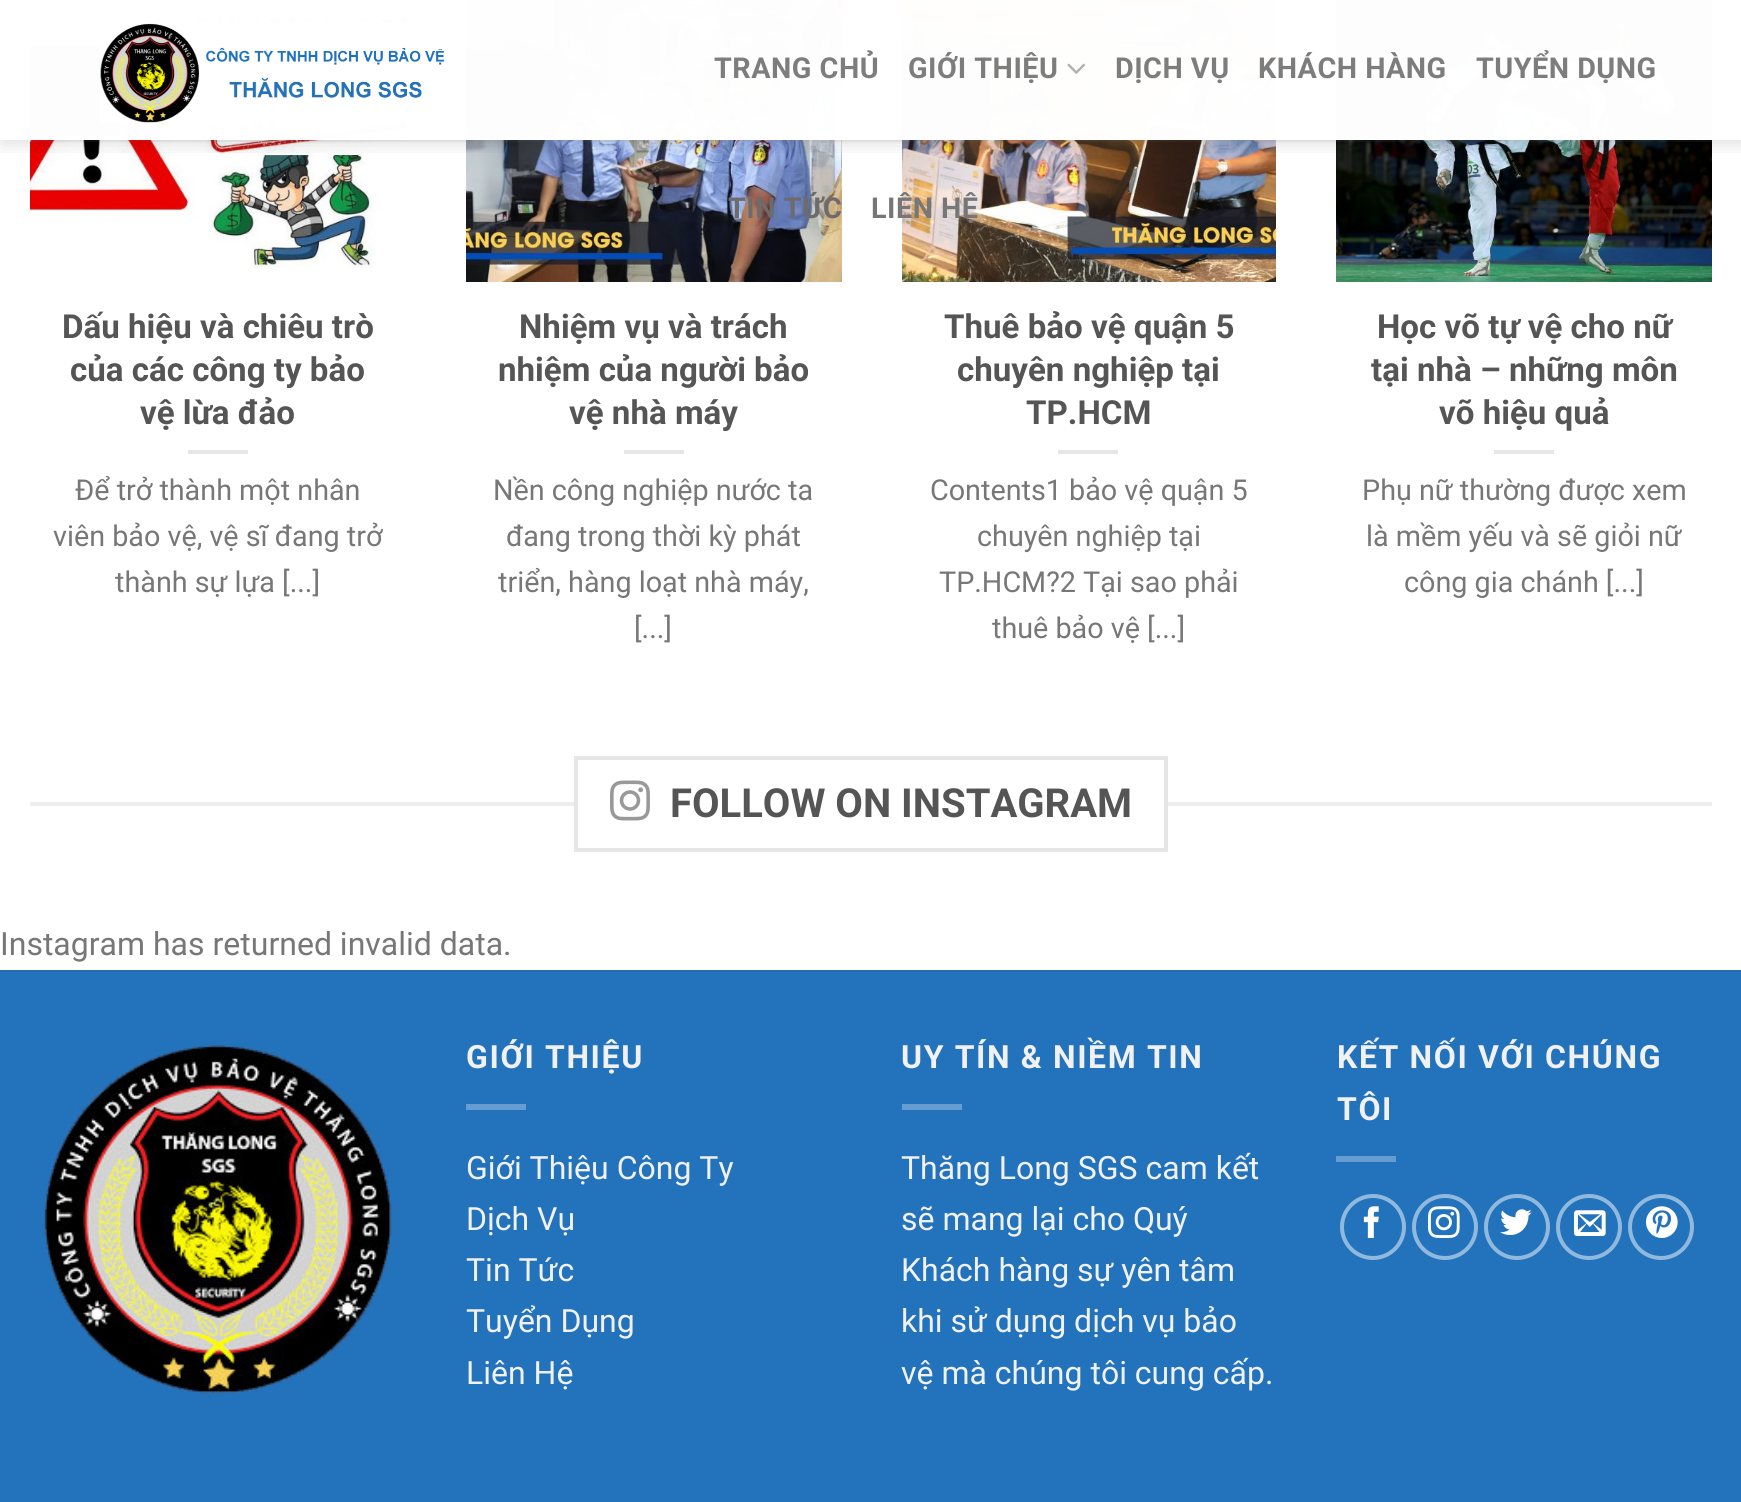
import math
import cairo


def write_spaced(ctx, x, y, s, letter, word):
	ctx.move_to(x, y)
	for ch in s:
		ctx.show_text(ch)
		ctx.rel_move_to(letter + word * (ch == ' '), 0)

def round_path(ctx, x, y, w, h, r):
	ctx.new_sub_path()
	for i, (u, v) in enumerate([(x + w - r, y + h - r), (x + r, y + h - r), (x + r, y + r), (x + w - r, y + r)]):
		ctx.arc(u, v, r, i * math.pi / 2, (i + 1) * math.pi / 2)
	ctx.close_path()

def blur_box(ctx, x, y, w, h, r, blur, alpha):
	ctx.push_group_with_content(cairo.CONTENT_ALPHA)
	ctx.set_operator(cairo.OPERATOR_SOURCE)
	for i in range(15, -16, -2):
		e = blur * i / 6
		if min(w, h) + 2 * e > 0:
			ctx.set_source_rgba(0, 0, 0, alpha * math.erfc((i - 1) / 8.5) / 2)
			round_path(ctx, x - e, y - e, w + 2 * e, h + 2 * e, max(0, min(r + e + blur * .6, min(w, h) / 2 + e)))
			ctx.fill()
	ctx.mask(ctx.pop_group())

def paste(ctx, path, x, y, w, h):
	ctx.save()
	ctx.set_source_surface(cairo.ImageSurface.create_from_png(path), x, y)
	ctx.rectangle(x, y, w, h)
	ctx.fill()
	ctx.restore()

def draw(ctx):
	ctx.set_source_rgb(1, 1, 1)
	ctx.paint()
	paste(ctx, 'media/3.png', 30, 8, 376, 261)
	ctx.set_source_rgb(0.267, 0.376, 0.518)
	ctx.rectangle(30, 46, 90, 90)
	ctx.fill()
	paste(ctx, 'media/4.png', 466, 0, 376, 282)
	ctx.rectangle(466, 50, 90, 88)
	ctx.fill()
	paste(ctx, 'media/5.png', 902, 0, 374, 282)
	ctx.rectangle(902, 50, 88, 88)
	ctx.fill()
	paste(ctx, 'media/6.png', 1336, 0, 376, 282)
	ctx.rectangle(1336, 46, 90, 90)
	ctx.fill()
	ctx.save()
	ctx.rectangle(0, 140, 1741, 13)
	ctx.clip()
	ctx.set_source_rgb(0, 0, 0)
	blur_box(ctx, 2, 2, 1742, 140, 0, 10, 0.15)
	ctx.restore()
	ctx.set_source_rgba(1, 1, 1, 0.9)
	ctx.rectangle(30, 0, 1682, 140)
	ctx.fill()
	ctx.rectangle(30, 0, 1682, 140)
	ctx.fill()
	paste(ctx, 'media/1.png', 100, 23, 345, 100)
	ctx.select_font_face('Roboto', cairo.FONT_SLANT_NORMAL, cairo.FONT_WEIGHT_BOLD)
	ctx.set_font_size(28.75)
	ctx.set_source_rgb(0.49, 0.49, 0.49)
	write_spaced(ctx, 714, 78, 'TRANG CHỦ', 0.5, 0)
	write_spaced(ctx, 908, 78, 'GIỚI THIỆU', 0.5, 0)
	paste(ctx, 'media/2.png', 1067, 63, 19, 11)
	for x, y, s in [
		(1115, 78, 'DỊCH VỤ'),
		(1258, 78, 'KHÁCH HÀNG'),
		(1476, 78, 'TUYỂN DỤNG'),
	]:
		write_spaced(ctx, x, y, s, 0.5, 0)
	ctx.set_source_rgb(0.427, 0.42, 0.424)
	write_spaced(ctx, 728, 218, 'TIN TỨC', 0.5, 0)
	ctx.set_source_rgb(0.467, 0.467, 0.467)
	write_spaced(ctx, 871, 218, 'LIÊN HỆ', 0.5, 0)
	ctx.set_source_rgba(0.467, 0.467, 0.467, 0.1)
	ctx.rectangle(30, 140, 1682, 2)
	ctx.fill()
	ctx.set_font_size(33.1)
	ctx.set_source_rgb(0.333, 0.333, 0.333)
	for x, y, s in [
		(62, 338, 'Dấu hiệu và chiêu trò'),
		(70, 381, 'của các công ty bảo'),
		(140, 424, 'vệ lừa đảo'),
	]:
		ctx.move_to(x, y)
		ctx.show_text(s)
	ctx.set_source_rgb(0.902, 0.902, 0.902)
	ctx.rectangle(188, 450, 60, 4)
	ctx.fill()
	ctx.select_font_face('Roboto')
	ctx.set_font_size(28.75)
	ctx.set_source_rgb(0.467, 0.467, 0.467)
	for x, y, s in [
		(75, 500, 'Để trở thành một nhân'),
		(53, 546, 'viên bảo vệ, vệ sĩ đang trở'),
		(115, 592, 'thành sự lựa [...]'),
	]:
		ctx.move_to(x, y)
		ctx.show_text(s)
	ctx.select_font_face('Roboto', cairo.FONT_SLANT_NORMAL, cairo.FONT_WEIGHT_BOLD)
	ctx.set_font_size(33.1)
	ctx.set_source_rgb(0.333, 0.333, 0.333)
	for x, y, s in [
		(519, 338, 'Nhiệm vụ và trách'),
		(498, 381, 'nhiệm của người bảo'),
		(569, 424, 'vệ nhà máy'),
	]:
		ctx.move_to(x, y)
		ctx.show_text(s)
	ctx.set_source_rgb(0.902, 0.902, 0.902)
	ctx.rectangle(624, 450, 60, 4)
	ctx.fill()
	ctx.select_font_face('Roboto')
	ctx.set_font_size(28.75)
	ctx.set_source_rgb(0.467, 0.467, 0.467)
	for x, y, s in [
		(493, 500, 'Nền công nghiệp nước ta'),
		(506, 546, 'đang trong thời kỳ phát'),
		(498, 592, 'triển, hàng loạt nhà máy,'),
		(634, 638, '[...]'),
	]:
		ctx.move_to(x, y)
		ctx.show_text(s)
	ctx.select_font_face('Roboto', cairo.FONT_SLANT_NORMAL, cairo.FONT_WEIGHT_BOLD)
	ctx.set_font_size(33.1)
	ctx.set_source_rgb(0.333, 0.333, 0.333)
	for x, y, s in [
		(944, 338, 'Thuê bảo vệ quận 5'),
		(957, 381, 'chuyên nghiệp tại'),
		(1026, 424, 'TP.HCM'),
	]:
		ctx.move_to(x, y)
		ctx.show_text(s)
	ctx.set_source_rgb(0.902, 0.902, 0.902)
	ctx.rectangle(1058, 450, 60, 4)
	ctx.fill()
	ctx.select_font_face('Roboto')
	ctx.set_font_size(28.75)
	ctx.set_source_rgb(0.467, 0.467, 0.467)
	for x, y, s in [
		(930, 500, 'Contents1 bảo vệ quận 5'),
		(977, 546, 'chuyên nghiệp tại'),
		(939, 592, 'TP.HCM?2 Tại sao phải'),
		(992, 638, 'thuê bảo vệ [...]'),
	]:
		ctx.move_to(x, y)
		ctx.show_text(s)
	ctx.select_font_face('Roboto', cairo.FONT_SLANT_NORMAL, cairo.FONT_WEIGHT_BOLD)
	ctx.set_font_size(33.1)
	ctx.set_source_rgb(0.333, 0.333, 0.333)
	for x, y, s in [
		(1377, 338, 'Học võ tự vệ cho nữ'),
		(1371, 381, 'tại nhà – những môn'),
		(1439, 424, 'võ hiệu quả'),
	]:
		ctx.move_to(x, y)
		ctx.show_text(s)
	ctx.set_source_rgb(0.902, 0.902, 0.902)
	ctx.rectangle(1494, 450, 60, 4)
	ctx.fill()
	ctx.select_font_face('Roboto')
	ctx.set_font_size(28.75)
	ctx.set_source_rgb(0.467, 0.467, 0.467)
	for x, y, s in [
		(1362, 500, 'Phụ nữ thường được xem'),
		(1366, 546, 'là mềm yếu và sẽ giỏi nữ'),
		(1404, 592, 'công gia chánh [...]'),
	]:
		ctx.move_to(x, y)
		ctx.show_text(s)
	ctx.set_source_rgb(0.933, 0.933, 0.933)
	ctx.rectangle(30, 802, 544, 4)
	ctx.fill()
	ctx.rectangle(576, 758, 590, 92)
	ctx.set_source_rgb(0.902, 0.902, 0.902)
	ctx.set_line_width(4)
	ctx.stroke()
	paste(ctx, 'media/7.png', 610, 780, 40, 41)
	ctx.select_font_face('Roboto', cairo.FONT_SLANT_NORMAL, cairo.FONT_WEIGHT_BOLD)
	ctx.set_font_size(40)
	ctx.set_source_rgb(0.333, 0.333, 0.333)
	ctx.move_to(670, 817)
	ctx.show_text('FOLLOW ON INSTAGRAM')
	ctx.set_source_rgb(0.933, 0.933, 0.933)
	ctx.rectangle(1168, 802, 544, 4)
	ctx.fill()
	ctx.select_font_face('Roboto')
	ctx.set_font_size(32)
	ctx.set_source_rgb(0.467, 0.467, 0.467)
	ctx.move_to(0, 955)
	ctx.show_text('Instagram has returned invalid data.')
	ctx.set_source_rgb(0.137, 0.451, 0.737)
	ctx.rectangle(0, 972, 1741, 530)
	ctx.fill()
	ctx.set_source_rgb(0.129, 0.427, 0.702)
	ctx.rectangle(0, 970, 1741, 2)
	ctx.fill()
	paste(ctx, 'media/8.png', 44, 1045, 348, 349)
	ctx.select_font_face('Roboto', cairo.FONT_SLANT_NORMAL, cairo.FONT_WEIGHT_BOLD)
	ctx.set_source_rgb(0.945, 0.945, 0.945)
	write_spaced(ctx, 466, 1068, 'GIỚI THIỆU', 1.6, 0)
	ctx.set_source_rgb(0.396, 0.616, 0.816)
	ctx.rectangle(466, 1104, 60, 6)
	ctx.fill()
	ctx.select_font_face('Roboto')
	ctx.set_source_rgb(0.945, 0.945, 0.945)
	for x, y, s in [
		(466, 1179, 'Giới Thiệu Công Ty'),
		(466, 1230, 'Dịch Vụ'),
		(466, 1281, 'Tin Tức'),
		(466, 1332, 'Tuyển Dụng'),
		(466, 1384, 'Liên Hệ'),
	]:
		ctx.move_to(x, y)
		ctx.show_text(s)
	ctx.select_font_face('Roboto', cairo.FONT_SLANT_NORMAL, cairo.FONT_WEIGHT_BOLD)
	write_spaced(ctx, 901, 1068, 'UY TÍN & NIỀM TIN', 1.6, 0)
	ctx.set_source_rgb(0.396, 0.616, 0.816)
	ctx.rectangle(902, 1104, 60, 6)
	ctx.fill()
	ctx.select_font_face('Roboto')
	ctx.set_source_rgb(0.945, 0.945, 0.945)
	for x, y, s in [
		(901, 1179, 'Thăng Long SGS cam kết'),
		(901, 1230, 'sẽ mang lại cho Quý'),
		(901, 1281, 'Khách hàng sự yên tâm'),
		(901, 1332, 'khi sử dụng dịch vụ bảo'),
		(901, 1384, 'vệ mà chúng tôi cung cấp.'),
	]:
		ctx.move_to(x, y)
		ctx.show_text(s)
	ctx.select_font_face('Roboto', cairo.FONT_SLANT_NORMAL, cairo.FONT_WEIGHT_BOLD)
	write_spaced(ctx, 1337, 1068, 'KẾT NỐI VỚI CHÚNG', 1.6, 0)
	write_spaced(ctx, 1337, 1120, 'TÔI', 1.6, 0)
	ctx.set_source_rgb(0.396, 0.616, 0.816)
	ctx.rectangle(1336, 1156, 60, 6)
	ctx.fill()
	ctx.arc(1373, 1227, 31, 0, 2 * math.pi)
	ctx.set_source_rgb(0.569, 0.725, 0.871)
	ctx.stroke()
	paste(ctx, 'media/9.png', 1363, 1206, 16, 32)
	ctx.arc(1445, 1227, 31, 0, 2 * math.pi)
	ctx.stroke()
	paste(ctx, 'media/10.png', 1428, 1206, 32, 32)
	ctx.arc(1517, 1227, 31, 0, 2 * math.pi)
	ctx.stroke()
	paste(ctx, 'media/11.png', 1500, 1209, 32, 26)
	ctx.arc(1589, 1227, 31, 0, 2 * math.pi)
	ctx.stroke()
	paste(ctx, 'media/12.png', 1574, 1210, 32, 26)
	ctx.arc(1661, 1227, 31, 0, 2 * math.pi)
	ctx.stroke()
	paste(ctx, 'media/13.png', 1646, 1206, 32, 32)


surface = cairo.ImageSurface(cairo.FORMAT_RGB24, 1741, 1502)
ctx = cairo.Context(surface)
options = cairo.FontOptions()
options.set_hint_metrics(cairo.HINT_METRICS_OFF)
options.set_hint_style(cairo.HINT_STYLE_NONE)
ctx.set_font_options(options)
ctx.set_miter_limit(4)
draw(ctx)
surface.write_to_png('image.png')
